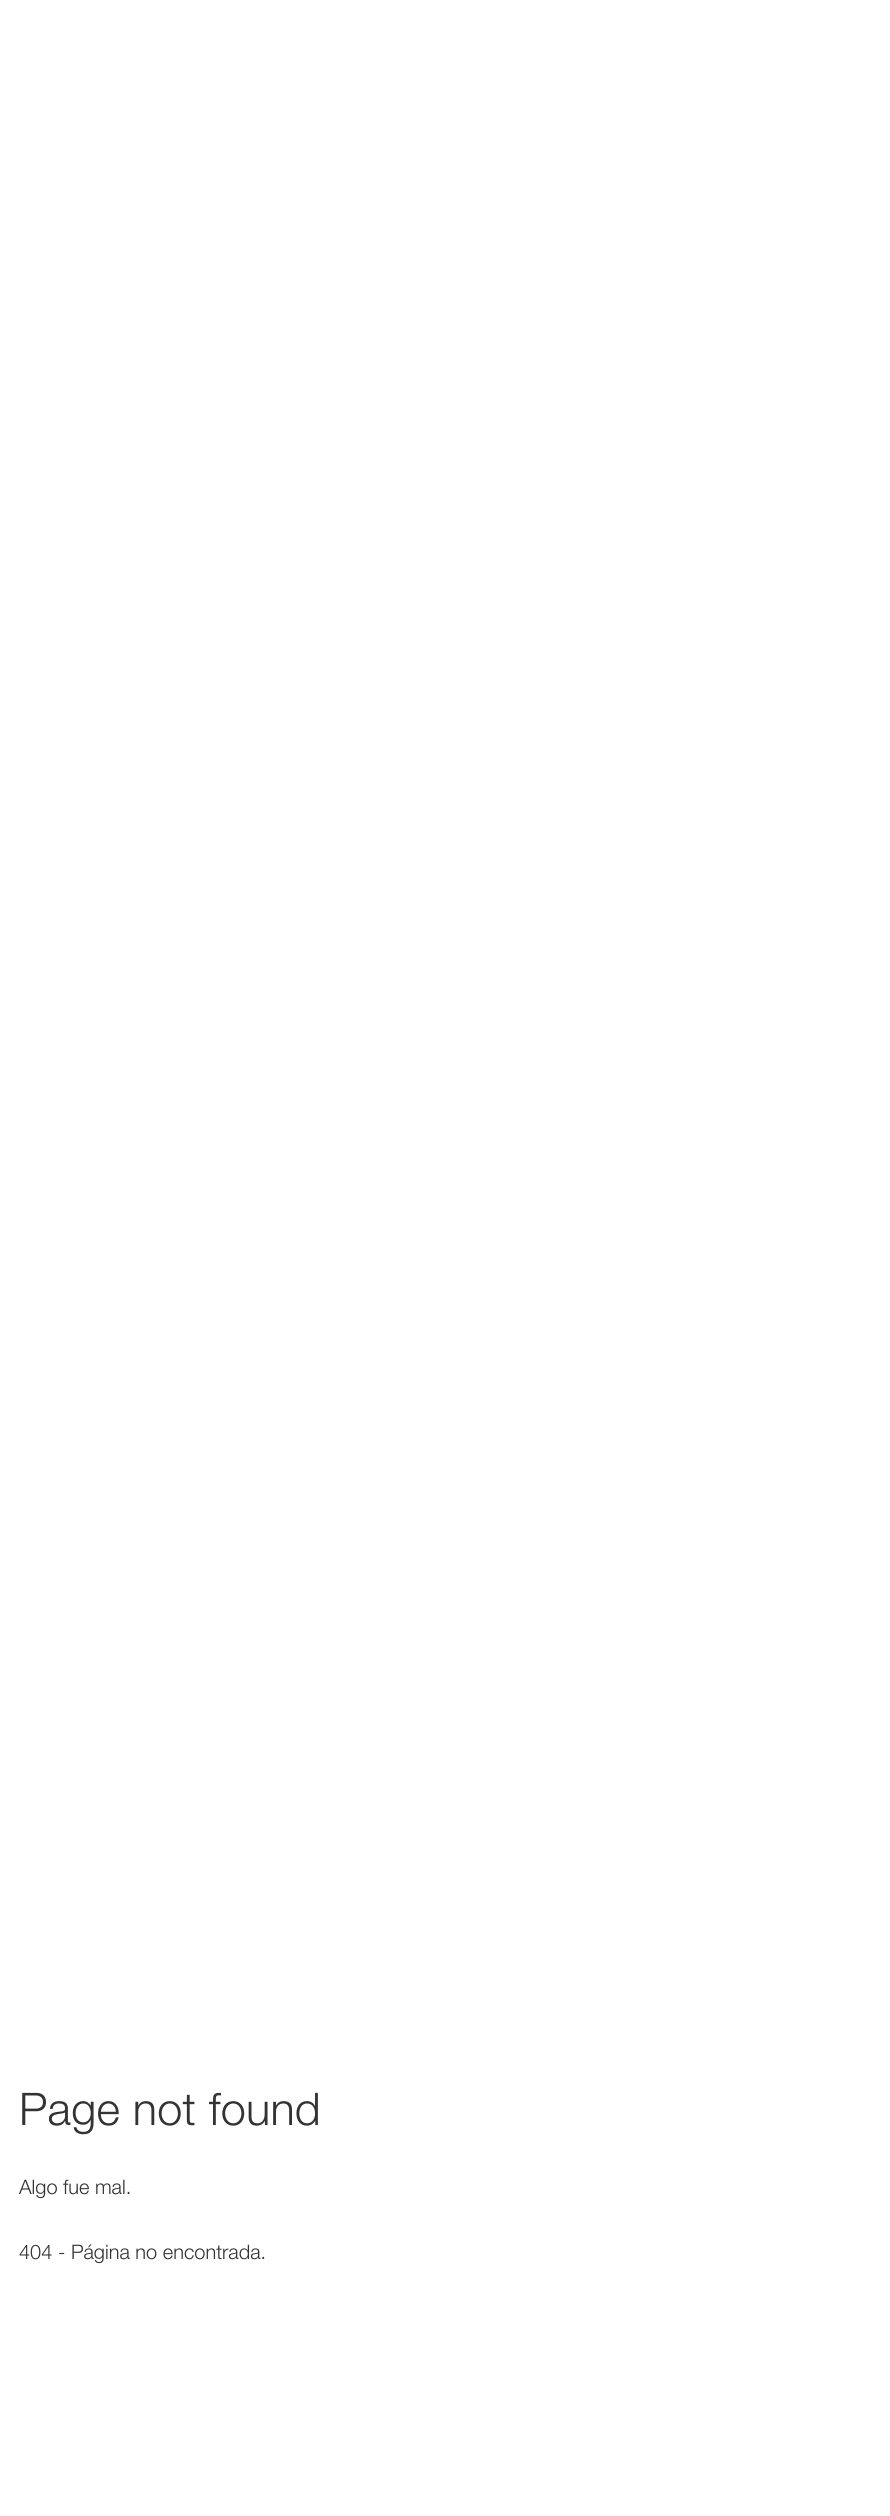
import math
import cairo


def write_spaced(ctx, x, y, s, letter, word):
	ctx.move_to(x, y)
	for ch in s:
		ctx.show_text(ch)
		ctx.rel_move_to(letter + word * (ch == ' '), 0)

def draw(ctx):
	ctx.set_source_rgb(1, 1, 1)
	ctx.paint()
	ctx.select_font_face('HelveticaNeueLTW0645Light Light')
	ctx.set_font_size(45)
	ctx.set_source_rgb(0.2, 0.2, 0.2)
	write_spaced(ctx, 19, 2125, 'Page not found', 0.25, 0)
	ctx.set_font_size(20)
	ctx.move_to(19, 2194)
	ctx.show_text('Algo fue mal.')
	ctx.move_to(19, 2259)
	ctx.show_text('404 - Página no encontrada.')


surface = cairo.ImageSurface(cairo.FORMAT_RGB24, 890, 2516)
ctx = cairo.Context(surface)
options = cairo.FontOptions()
options.set_hint_metrics(cairo.HINT_METRICS_OFF)
options.set_hint_style(cairo.HINT_STYLE_NONE)
ctx.set_font_options(options)
ctx.set_miter_limit(4)
draw(ctx)
surface.write_to_png('image.png')
